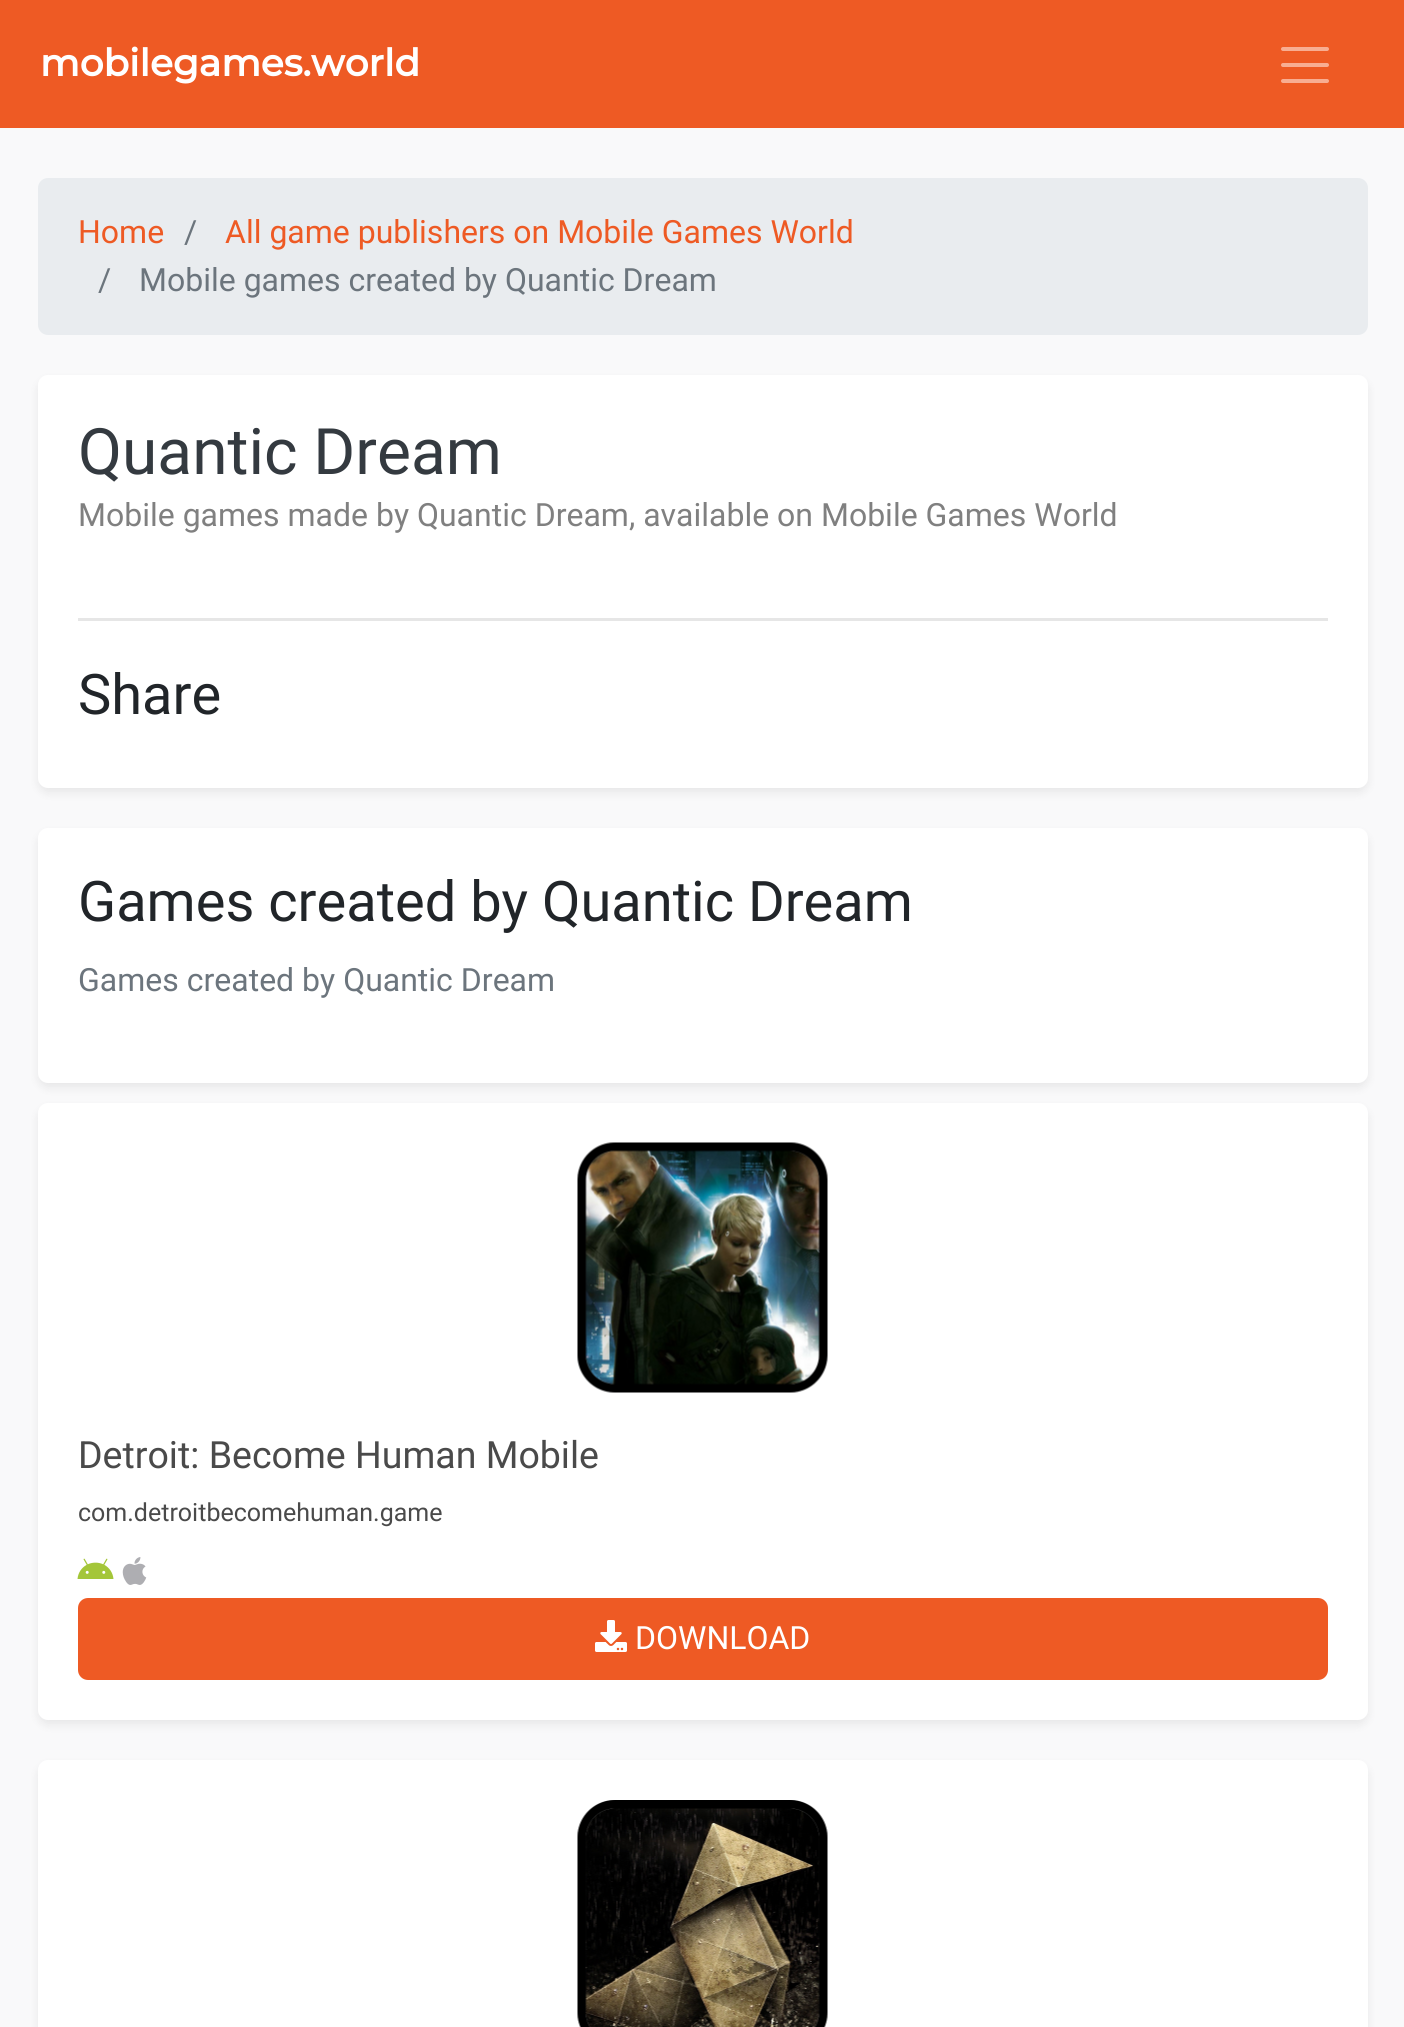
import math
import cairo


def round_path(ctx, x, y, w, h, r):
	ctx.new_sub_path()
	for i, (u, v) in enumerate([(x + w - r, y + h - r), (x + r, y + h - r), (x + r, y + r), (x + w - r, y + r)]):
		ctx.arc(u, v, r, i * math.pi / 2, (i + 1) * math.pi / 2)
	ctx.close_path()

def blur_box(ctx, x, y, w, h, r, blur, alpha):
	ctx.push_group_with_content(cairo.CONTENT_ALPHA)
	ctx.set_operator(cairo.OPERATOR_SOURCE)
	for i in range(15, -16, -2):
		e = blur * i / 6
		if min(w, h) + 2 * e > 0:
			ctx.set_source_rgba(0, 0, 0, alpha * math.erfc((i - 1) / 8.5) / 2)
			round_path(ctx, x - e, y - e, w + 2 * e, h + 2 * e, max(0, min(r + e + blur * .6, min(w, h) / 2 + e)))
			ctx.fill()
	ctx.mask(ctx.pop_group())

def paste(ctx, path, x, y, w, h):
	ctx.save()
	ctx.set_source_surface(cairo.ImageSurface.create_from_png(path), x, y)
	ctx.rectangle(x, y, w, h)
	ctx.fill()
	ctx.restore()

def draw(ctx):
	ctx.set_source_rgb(0.973, 0.976, 0.98)
	ctx.paint()
	ctx.set_source_rgb(0.933, 0.353, 0.141)
	ctx.rectangle(0, 0, 1404, 128)
	ctx.fill()
	ctx.select_font_face('Montserrat', cairo.FONT_SLANT_NORMAL, cairo.FONT_WEIGHT_BOLD)
	ctx.set_font_size(37.5)
	ctx.set_source_rgb(1, 1, 1)
	ctx.move_to(40, 76)
	ctx.show_text('mobilegames.world')
	ctx.new_path()
	ctx.move_to(1283, 49)
	ctx.line_to(1327, 49)
	ctx.move_to(1283, 65)
	ctx.line_to(1327, 65)
	ctx.move_to(1283, 81)
	ctx.line_to(1327, 81)
	ctx.set_source_rgb(0.969, 0.678, 0.573)
	ctx.set_line_width(4)
	ctx.set_line_cap(cairo.LINE_CAP_ROUND)
	ctx.stroke()
	ctx.set_source_rgb(0.914, 0.925, 0.937)
	round_path(ctx, 38, 178, 1330, 157, 10)
	ctx.fill()
	ctx.select_font_face('Roboto')
	ctx.set_font_size(32)
	ctx.set_source_rgb(0.933, 0.353, 0.141)
	ctx.move_to(78, 243)
	ctx.show_text('Home')
	ctx.set_source_rgb(0.424, 0.459, 0.49)
	ctx.move_to(184, 243)
	ctx.show_text('/')
	ctx.set_source_rgb(0.933, 0.353, 0.141)
	ctx.move_to(225, 243)
	ctx.show_text('All game publishers on Mobile Games World')
	ctx.set_source_rgb(0.424, 0.459, 0.49)
	ctx.move_to(98, 291)
	ctx.show_text('/')
	ctx.move_to(139, 291)
	ctx.show_text('Mobile games created by Quantic Dream')
	ctx.set_source_rgb(0, 0, 0)
	blur_box(ctx, 38, 380, 1330, 413, 10, 5, 0.07)
	ctx.set_source_rgb(1, 1, 1)
	round_path(ctx, 38, 375, 1330, 413, 10)
	ctx.fill()
	ctx.set_font_size(64)
	ctx.set_source_rgb(0.204, 0.227, 0.251)
	ctx.move_to(78, 474)
	ctx.show_text('Quantic Dream')
	ctx.set_font_size(32)
	ctx.set_source_rgb(0.502, 0.502, 0.502)
	ctx.move_to(78, 526)
	ctx.show_text('Mobile games made by Quantic Dream, available on Mobile Games World')
	ctx.set_source_rgb(0.902, 0.902, 0.902)
	ctx.rectangle(78, 618, 1250, 3)
	ctx.fill()
	ctx.set_font_size(56)
	ctx.set_source_rgb(0.129, 0.145, 0.161)
	ctx.move_to(78, 714)
	ctx.show_text('Share')
	ctx.set_source_rgb(0, 0, 0)
	blur_box(ctx, 38, 833, 1330, 255, 10, 5, 0.07)
	ctx.set_source_rgb(1, 1, 1)
	round_path(ctx, 38, 828, 1330, 255, 10)
	ctx.fill()
	ctx.set_source_rgb(0.129, 0.145, 0.161)
	ctx.move_to(78, 921)
	ctx.show_text('Games created by Quantic Dream')
	ctx.set_font_size(32)
	ctx.set_source_rgb(0.424, 0.459, 0.49)
	ctx.move_to(78, 991)
	ctx.show_text('Games created by Quantic Dream')
	ctx.set_source_rgb(0, 0, 0)
	blur_box(ctx, 38, 1108, 1330, 617, 10, 5, 0.07)
	ctx.set_source_rgb(1, 1, 1)
	round_path(ctx, 38, 1103, 1330, 617, 10)
	ctx.fill()
	paste(ctx, 'media/1.png', 577, 1142, 251, 251)
	ctx.set_font_size(37.5)
	ctx.set_source_rgb(0.29, 0.29, 0.29)
	ctx.move_to(78, 1468)
	ctx.show_text('Detroit: Become Human Mobile')
	ctx.set_font_size(25)
	ctx.move_to(78, 1521)
	ctx.show_text('com.detroitbecomehuman.game')
	paste(ctx, 'media/2.png', 77, 1558, 37, 21)
	paste(ctx, 'media/3.png', 122, 1557, 25, 28)
	ctx.set_source_rgb(0.933, 0.353, 0.141)
	round_path(ctx, 79.5, 1599.5, 1247, 79, 8.5)
	ctx.fill_preserve()
	ctx.set_line_width(3)
	ctx.set_line_cap(cairo.LINE_CAP_BUTT)
	ctx.stroke()
	paste(ctx, 'media/4.png', 595, 1620, 32, 32)
	ctx.set_font_size(32)
	ctx.set_source_rgb(1, 1, 1)
	ctx.move_to(635, 1649)
	ctx.show_text('DOWNLOAD')
	ctx.set_source_rgb(0, 0, 0)
	blur_box(ctx, 38, 1765, 1330, 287, 10, 5, 0.07)
	ctx.set_source_rgb(1, 1, 1)
	round_path(ctx, 38, 1760, 1330, 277, 10)
	ctx.fill()
	paste(ctx, 'media/5.png', 577, 1800, 251, 227)


surface = cairo.ImageSurface(cairo.FORMAT_RGB24, 1404, 2027)
ctx = cairo.Context(surface)
options = cairo.FontOptions()
options.set_hint_metrics(cairo.HINT_METRICS_OFF)
options.set_hint_style(cairo.HINT_STYLE_NONE)
ctx.set_font_options(options)
ctx.set_miter_limit(4)
draw(ctx)
surface.write_to_png('image.png')
